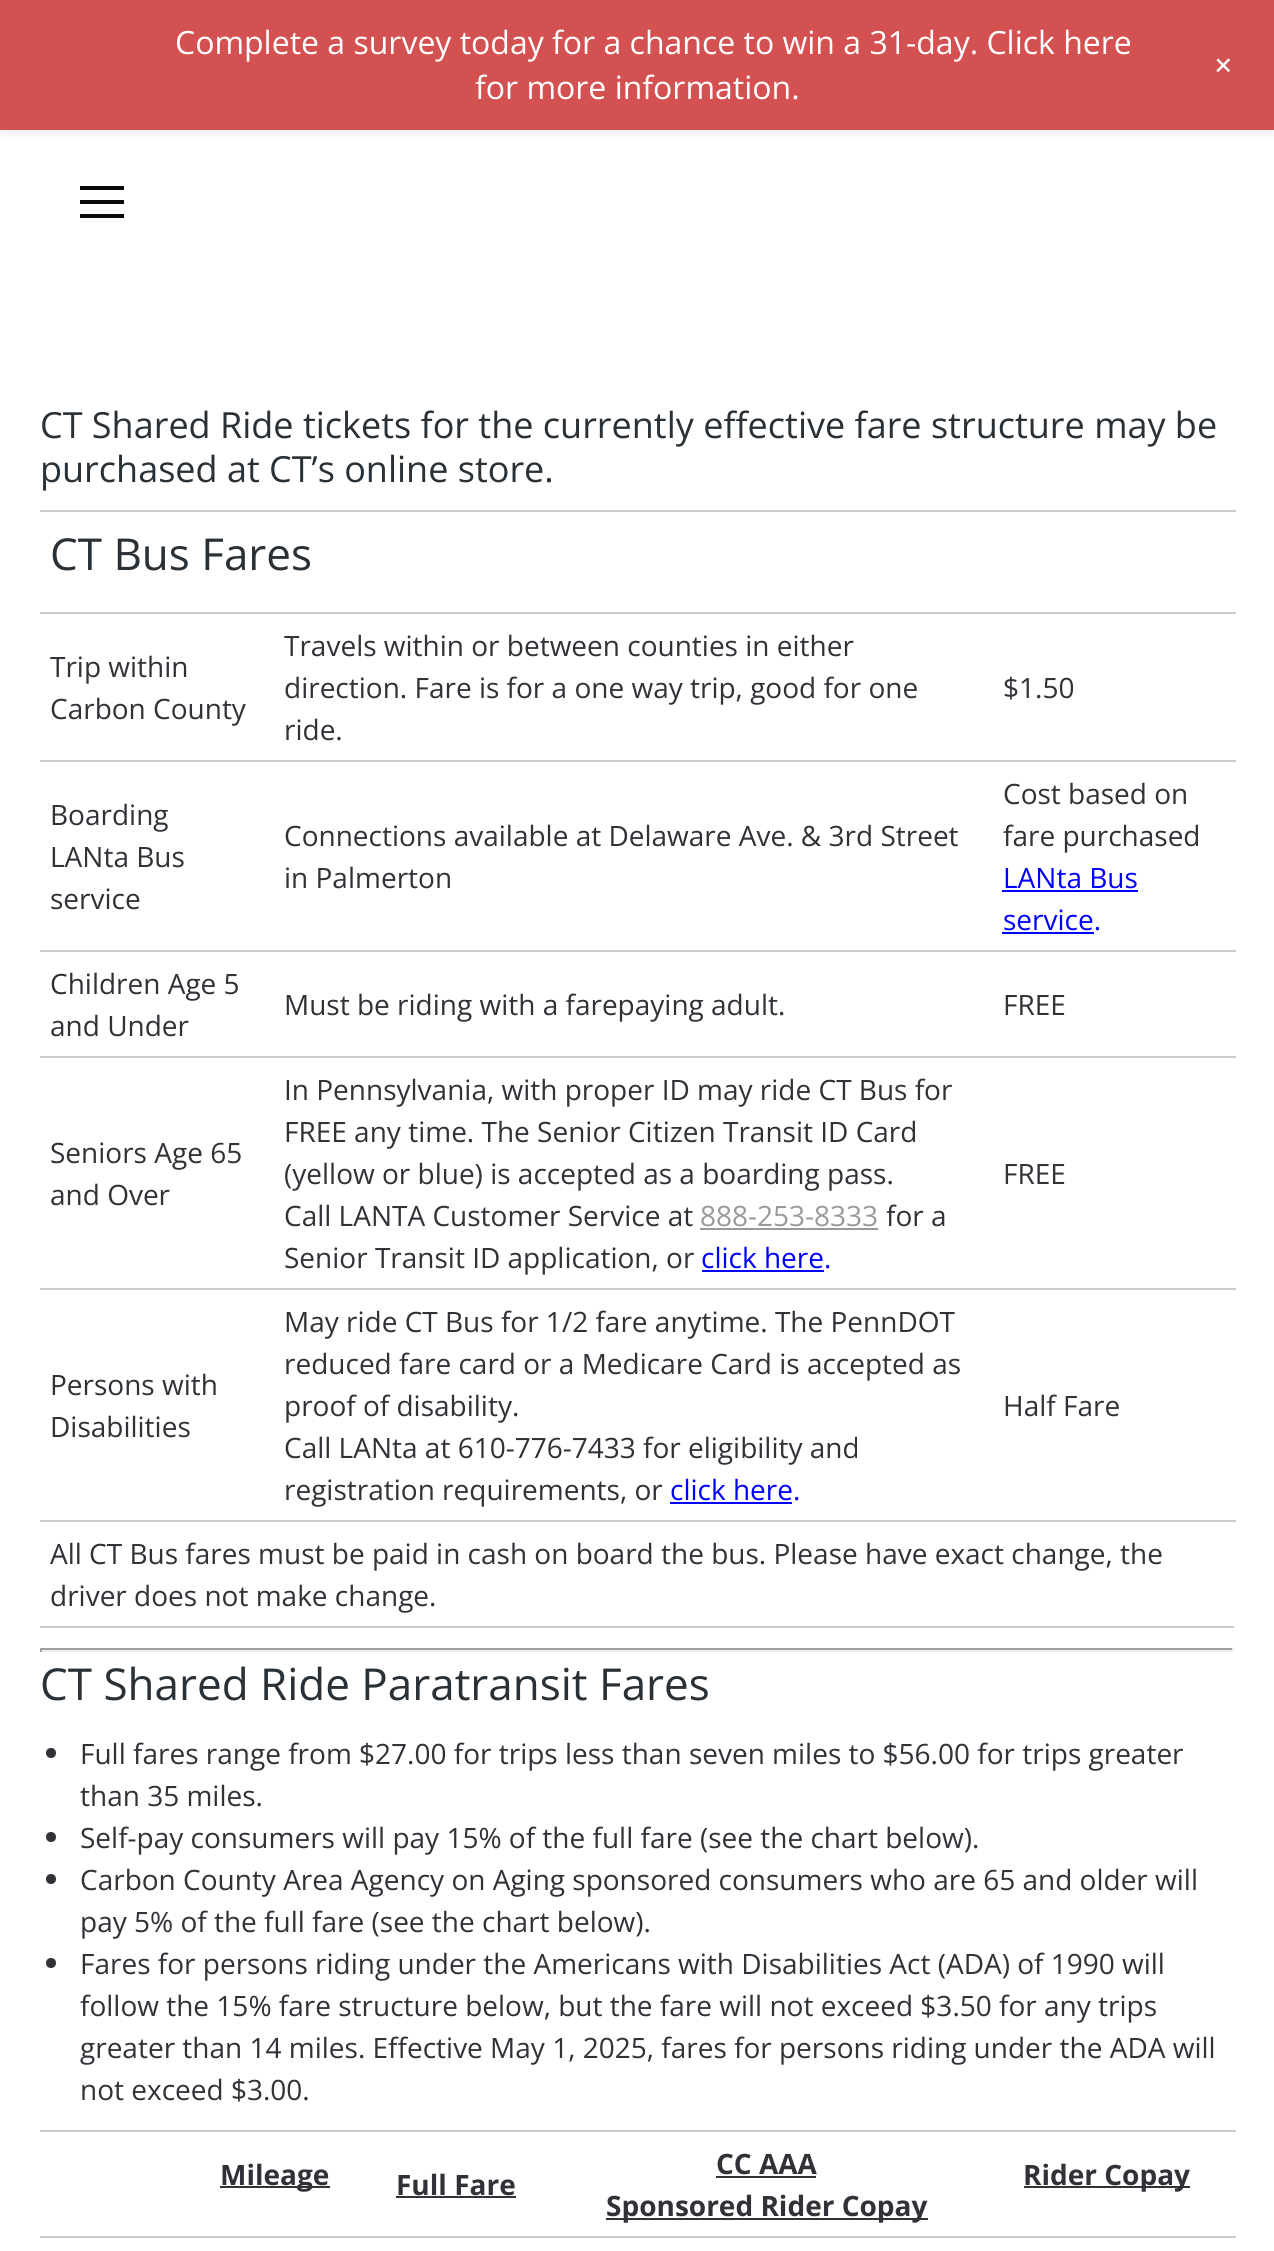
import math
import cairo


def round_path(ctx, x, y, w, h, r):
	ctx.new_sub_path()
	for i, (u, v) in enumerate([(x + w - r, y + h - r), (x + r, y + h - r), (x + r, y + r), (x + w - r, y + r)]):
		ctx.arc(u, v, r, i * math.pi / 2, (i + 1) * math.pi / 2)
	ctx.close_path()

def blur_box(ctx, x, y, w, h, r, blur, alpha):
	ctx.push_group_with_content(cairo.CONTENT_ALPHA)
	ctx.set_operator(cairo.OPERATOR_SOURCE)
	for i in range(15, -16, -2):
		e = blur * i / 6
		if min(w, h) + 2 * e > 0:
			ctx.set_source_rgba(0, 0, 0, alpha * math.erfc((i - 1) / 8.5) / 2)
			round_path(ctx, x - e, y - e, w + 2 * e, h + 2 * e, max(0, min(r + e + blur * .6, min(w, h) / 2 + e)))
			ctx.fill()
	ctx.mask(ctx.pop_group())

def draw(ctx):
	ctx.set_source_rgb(1, 1, 1)
	ctx.paint()
	ctx.set_source_rgb(0, 0, 0)
	blur_box(ctx, 0, 6, 1274, 130, 0, 4, 0.05)
	ctx.set_source_rgb(0.827, 0.318, 0.318)
	ctx.rectangle(0, 0, 1274, 130)
	ctx.fill()
	ctx.select_font_face('Open Sans')
	ctx.set_font_size(32)
	ctx.set_source_rgb(1, 1, 1)
	ctx.move_to(175, 54)
	ctx.show_text('Complete a survey today for a chance to win a 31-day. Click here')
	ctx.move_to(475, 99)
	ctx.show_text('for more information.')
	ctx.set_font_size(36)
	ctx.save()
	ctx.translate(1207, 67)
	ctx.rotate(45 * math.pi / 180)
	ctx.move_to(0, 0)
	ctx.show_text('+')
	ctx.restore()
	ctx.set_source_rgb(0.039, 0.039, 0.039)
	ctx.rectangle(80, 186, 44, 4)
	ctx.rectangle(80, 200, 44, 4)
	ctx.rectangle(80, 214, 44, 4)
	ctx.fill()
	ctx.set_source_rgb(0.165, 0.192, 0.212)
	ctx.move_to(40, 438)
	ctx.show_text('CT Shared Ride tickets for the currently effective fare structure may be')
	ctx.move_to(40, 482)
	ctx.show_text('purchased at CT’s online store.')
	ctx.set_source_rgb(0.8, 0.8, 0.8)
	ctx.rectangle(40, 1626, 1194, 2)
	ctx.fill()
	ctx.rectangle(40, 510, 1196, 2)
	ctx.fill()
	ctx.set_font_size(44)
	ctx.set_source_rgb(0.165, 0.192, 0.212)
	ctx.move_to(50, 570)
	ctx.show_text('CT Bus Fares')
	ctx.set_font_size(28)
	ctx.set_source_rgb(0.192, 0.196, 0.22)
	for x, y, s in [
		(50, 677, 'Trip within'),
		(50, 719, 'Carbon County'),
		(284, 656, 'Travels within or between counties in either'),
		(284, 698, 'direction. Fare is for a one way trip, good for one'),
		(284, 740, 'ride.'),
	]:
		ctx.move_to(x, y)
		ctx.show_text(s)
	ctx.set_source_rgb(0.8, 0.8, 0.8)
	ctx.rectangle(40, 612, 1196, 2)
	ctx.fill()
	ctx.set_source_rgb(0.192, 0.196, 0.22)
	for x, y, s in [
		(1003, 698, '$1.50'),
		(50, 825, 'Boarding'),
		(50, 867, 'LANta Bus'),
		(50, 909, 'service'),
		(284, 846, 'Connections available at Delaware Ave. & 3rd Street'),
		(284, 888, 'in Palmerton'),
	]:
		ctx.move_to(x, y)
		ctx.show_text(s)
	ctx.set_source_rgb(0.8, 0.8, 0.8)
	ctx.rectangle(40, 760, 1196, 2)
	ctx.fill()
	ctx.set_source_rgb(0.192, 0.196, 0.22)
	ctx.move_to(1003, 804)
	ctx.show_text('Cost based on')
	ctx.move_to(1003, 846)
	ctx.show_text('fare purchased')
	ctx.set_source_rgb(0, 0, 1)
	ctx.move_to(1003, 888)
	ctx.show_text('LANta Bus')
	ctx.rectangle(1002, 890, 136, 2)
	ctx.fill()
	ctx.move_to(1003, 930)
	ctx.show_text('service.')
	ctx.rectangle(1002, 932, 92, 2)
	ctx.fill()
	ctx.set_source_rgb(0.192, 0.196, 0.22)
	for x, y, s in [
		(50, 994, 'Children Age 5'),
		(50, 1036, 'and Under'),
		(284, 1015, 'Must be riding with a farepaying adult.'),
	]:
		ctx.move_to(x, y)
		ctx.show_text(s)
	ctx.set_source_rgb(0.8, 0.8, 0.8)
	ctx.rectangle(40, 950, 1196, 2)
	ctx.fill()
	ctx.set_source_rgb(0.192, 0.196, 0.22)
	for x, y, s in [
		(1003, 1015, 'FREE'),
		(50, 1163, 'Seniors Age 65'),
		(50, 1205, 'and Over'),
		(284, 1100, 'In Pennsylvania, with proper ID may ride CT Bus for'),
		(284, 1142, 'FREE any time. The Senior Citizen Transit ID Card'),
		(284, 1184, '(yellow or blue) is accepted as a boarding pass.'),
		(284, 1226, 'Call LANTA Customer Service at'),
	]:
		ctx.move_to(x, y)
		ctx.show_text(s)
	ctx.set_source_rgb(0.6, 0.6, 0.6)
	ctx.move_to(700, 1226)
	ctx.show_text('888-253-8333')
	ctx.rectangle(700, 1228, 178, 2)
	ctx.fill()
	ctx.set_source_rgb(0.192, 0.196, 0.22)
	ctx.move_to(886, 1226)
	ctx.show_text('for a')
	ctx.move_to(284, 1268)
	ctx.show_text('Senior Transit ID application, or')
	ctx.set_source_rgb(0, 0, 1)
	ctx.move_to(701, 1268)
	ctx.show_text('click here.')
	ctx.rectangle(702, 1270, 122, 2)
	ctx.fill()
	ctx.set_source_rgb(0.8, 0.8, 0.8)
	ctx.rectangle(40, 1056, 1196, 2)
	ctx.fill()
	ctx.set_source_rgb(0.192, 0.196, 0.22)
	for x, y, s in [
		(1003, 1184, 'FREE'),
		(50, 1395, 'Persons with'),
		(50, 1437, 'Disabilities'),
		(284, 1332, 'May ride CT Bus for 1/2 fare anytime. The PennDOT'),
		(284, 1374, 'reduced fare card or a Medicare Card is accepted as'),
		(284, 1416, 'proof of disability.'),
		(284, 1458, 'Call LANta at 610-776-7433 for eligibility and'),
		(284, 1500, 'registration requirements, or'),
	]:
		ctx.move_to(x, y)
		ctx.show_text(s)
	ctx.set_source_rgb(0, 0, 1)
	ctx.move_to(670, 1500)
	ctx.show_text('click here.')
	ctx.rectangle(670, 1502, 122, 2)
	ctx.fill()
	ctx.set_source_rgb(0.8, 0.8, 0.8)
	ctx.rectangle(40, 1288, 1196, 2)
	ctx.fill()
	ctx.set_source_rgb(0.192, 0.196, 0.22)
	ctx.move_to(1003, 1416)
	ctx.show_text('Half Fare')
	ctx.set_source_rgb(0.8, 0.8, 0.8)
	ctx.rectangle(40, 1520, 1196, 2)
	ctx.fill()
	ctx.set_source_rgb(0.192, 0.196, 0.22)
	ctx.move_to(50, 1564)
	ctx.show_text('All CT Bus fares must be paid in cash on board the bus. Please have exact change, the')
	ctx.move_to(50, 1606)
	ctx.show_text('driver does not make change.')
	ctx.set_source_rgb(0.624, 0.624, 0.624)
	ctx.rectangle(40, 1648, 1194, 2)
	ctx.fill()
	ctx.set_source_rgb(0.933, 0.933, 0.933)
	ctx.rectangle(1232, 1648, 2, 4)
	ctx.rectangle(40, 1650, 1194, 2)
	ctx.fill()
	ctx.set_source_rgb(0.624, 0.624, 0.624)
	ctx.rectangle(40, 1648, 2, 4)
	ctx.fill()
	ctx.set_font_size(44)
	ctx.set_source_rgb(0.165, 0.192, 0.212)
	ctx.move_to(40, 1700)
	ctx.show_text('CT Shared Ride Paratransit Fares')
	ctx.set_source_rgb(0.192, 0.196, 0.22)
	ctx.new_path()
	ctx.arc(51, 1753, 5, 0, 2 * math.pi)
	ctx.fill()
	ctx.set_font_size(28)
	ctx.move_to(80, 1764)
	ctx.show_text('Full fares range from $27.00 for trips less than seven miles to $56.00 for trips greater')
	ctx.move_to(80, 1806)
	ctx.show_text('than 35 miles.')
	ctx.new_path()
	ctx.arc(51, 1837, 5, 0, 2 * math.pi)
	ctx.fill()
	ctx.move_to(80, 1848)
	ctx.show_text('Self-pay consumers will pay 15% of the full fare (see the chart below).')
	ctx.new_path()
	ctx.arc(51, 1879, 5, 0, 2 * math.pi)
	ctx.fill()
	ctx.move_to(80, 1890)
	ctx.show_text('Carbon County Area Agency on Aging sponsored consumers who are 65 and older will')
	ctx.move_to(80, 1932)
	ctx.show_text('pay 5% of the full fare (see the chart below).')
	ctx.new_path()
	ctx.arc(51, 1963, 5, 0, 2 * math.pi)
	ctx.fill()
	for x, y, s in [
		(80, 1974, 'Fares for persons riding under the Americans with Disabilities Act (ADA) of 1990 will'),
		(80, 2016, 'follow the 15% fare structure below, but the fare will not exceed $3.50 for any trips'),
		(80, 2058, 'greater than 14 miles. Effective May 1, 2025, fares for persons riding under the ADA will'),
		(80, 2100, 'not exceed $3.00.'),
	]:
		ctx.move_to(x, y)
		ctx.show_text(s)
	ctx.rectangle(220, 2186, 110, 2)
	ctx.fill()
	ctx.select_font_face('Open Sans', cairo.FONT_SLANT_NORMAL, cairo.FONT_WEIGHT_BOLD)
	ctx.move_to(220, 2185)
	ctx.show_text('Mileage')
	ctx.move_to(396, 2195)
	ctx.show_text('Full Fare')
	ctx.rectangle(396, 2196, 120, 2)
	ctx.fill()
	ctx.move_to(716, 2174)
	ctx.show_text('CC AAA')
	ctx.rectangle(716, 2176, 100, 2)
	ctx.fill()
	ctx.rectangle(606, 2218, 322, 2)
	ctx.fill()
	ctx.move_to(606, 2216)
	ctx.show_text('Sponsored Rider Copay')
	ctx.set_source_rgb(0.8, 0.8, 0.8)
	ctx.rectangle(40, 2130, 1196, 2)
	ctx.fill()
	ctx.set_source_rgb(0.192, 0.196, 0.22)
	ctx.rectangle(1024, 2186, 166, 2)
	ctx.fill()
	ctx.move_to(1023, 2185)
	ctx.show_text('Rider Copay')
	ctx.set_source_rgb(0.8, 0.8, 0.8)
	ctx.rectangle(40, 2236, 1196, 2)
	ctx.fill()


surface = cairo.ImageSurface(cairo.FORMAT_RGB24, 1274, 2251)
ctx = cairo.Context(surface)
options = cairo.FontOptions()
options.set_hint_metrics(cairo.HINT_METRICS_OFF)
options.set_hint_style(cairo.HINT_STYLE_NONE)
ctx.set_font_options(options)
ctx.set_miter_limit(4)
draw(ctx)
surface.write_to_png('image.png')
